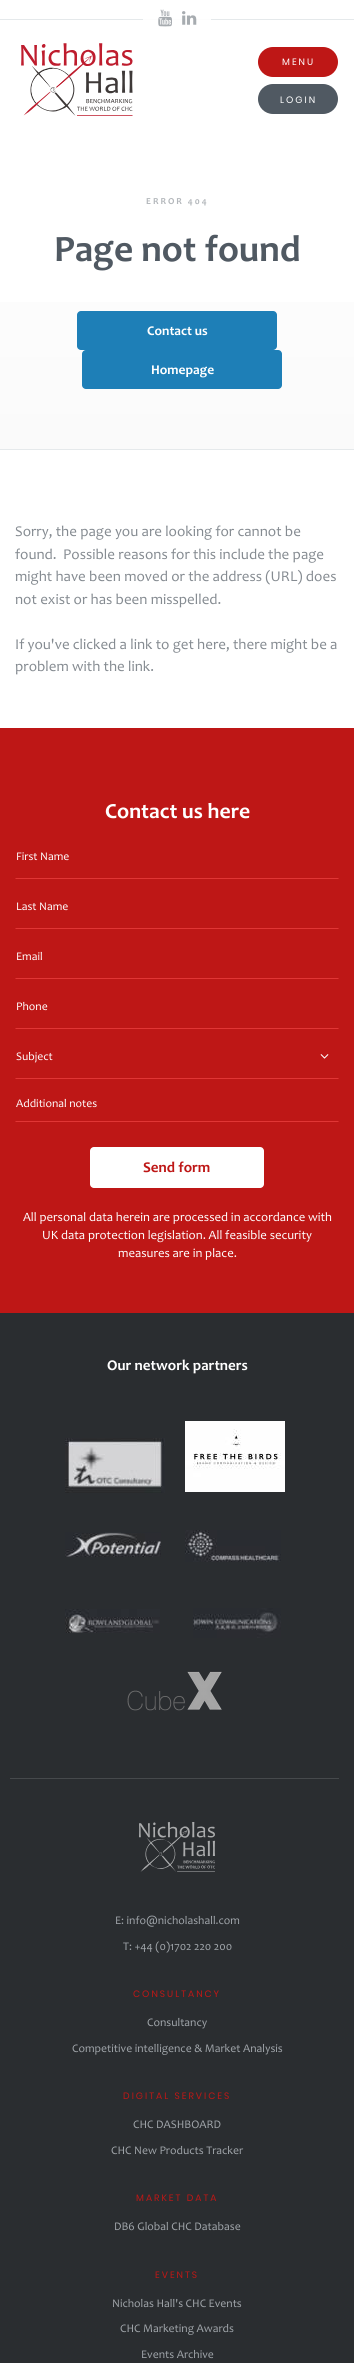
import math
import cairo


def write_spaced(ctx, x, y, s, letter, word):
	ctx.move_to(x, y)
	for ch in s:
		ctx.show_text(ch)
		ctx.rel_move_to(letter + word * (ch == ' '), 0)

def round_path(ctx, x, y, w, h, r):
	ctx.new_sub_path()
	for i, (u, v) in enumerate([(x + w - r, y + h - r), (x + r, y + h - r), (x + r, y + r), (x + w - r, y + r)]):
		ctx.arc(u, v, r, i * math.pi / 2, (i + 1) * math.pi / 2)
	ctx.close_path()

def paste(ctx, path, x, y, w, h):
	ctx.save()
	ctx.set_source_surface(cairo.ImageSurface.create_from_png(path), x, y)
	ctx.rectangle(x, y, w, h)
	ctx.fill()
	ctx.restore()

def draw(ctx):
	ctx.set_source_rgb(1, 1, 1)
	ctx.paint()
	ctx.set_source_rgb(0.898, 0.914, 0.918)
	ctx.rectangle(0, 19, 354, 1)
	ctx.fill()
	ctx.set_source_rgb(0.992, 0.992, 0.992)
	ctx.rectangle(143, 19, 68, 1)
	ctx.fill()
	paste(ctx, 'media/1.png', 158, 9, 14, 18)
	paste(ctx, 'media/2.png', 182, 11, 15, 14)
	paste(ctx, 'media/3.png', 21, 43, 112, 73)
	ctx.set_source_rgb(0.745, 0.09, 0.086)
	round_path(ctx, 258, 47, 80, 30, 15)
	ctx.fill()
	ctx.select_font_face('Poppins')
	ctx.set_font_size(9.25)
	ctx.set_source_rgb(1, 1, 1)
	write_spaced(ctx, 282, 65, 'MENU', 2, 0)
	ctx.set_source_rgb(0.314, 0.349, 0.384)
	round_path(ctx, 258, 84, 80, 30, 15)
	ctx.fill()
	ctx.set_source_rgb(1, 1, 1)
	write_spaced(ctx, 280, 103, 'LOGIN', 2, 0)
	gradient = cairo.LinearGradient(177, 155, 177, 449)
	gradient.add_color_stop_rgba(0, 1, 1, 1, 1)
	gradient.add_color_stop_rgba(1, 0.98, 0.98, 0.98, 1)
	ctx.set_source(gradient)
	ctx.rectangle(0, 302, 354, 147)
	ctx.fill()
	ctx.set_source_rgb(0.898, 0.914, 0.918)
	ctx.rectangle(0, 449, 354, 1)
	ctx.fill()
	ctx.select_font_face('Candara', cairo.FONT_SLANT_NORMAL, cairo.FONT_WEIGHT_BOLD)
	ctx.set_source_rgb(0.702, 0.718, 0.733)
	write_spaced(ctx, 146, 204, 'ERROR 404', 2, 0)
	ctx.set_font_size(37.5)
	ctx.set_source_rgb(0.314, 0.349, 0.384)
	ctx.move_to(54, 261)
	ctx.show_text('Page not found')
	ctx.set_source_rgb(0.118, 0.498, 0.718)
	round_path(ctx, 77, 311, 200, 39, 4)
	ctx.fill()
	ctx.set_font_size(13.5)
	ctx.set_source_rgb(1, 1, 1)
	ctx.move_to(147, 335)
	ctx.show_text('Contact us')
	ctx.set_source_rgb(0.118, 0.498, 0.718)
	round_path(ctx, 82, 350, 200, 39, 4)
	ctx.fill()
	ctx.set_source_rgb(1, 1, 1)
	ctx.move_to(151, 374)
	ctx.show_text('Homepage')
	ctx.select_font_face('Candara')
	ctx.set_font_size(15)
	ctx.set_source_rgb(0.522, 0.545, 0.569)
	for x, y, s in [
		(15, 536, 'Sorry, the page you are looking for cannot be'),
		(15, 559, 'found.'),
		(63, 559, 'Possible reasons for this include the page'),
		(15, 581, 'might have been moved or the address (URL) does'),
		(15, 604, 'not exist or has been misspelled.'),
		(15, 649, 'If you\'ve clicked a link to get here, there might be a'),
		(15, 671, 'problem with the link.'),
	]:
		ctx.move_to(x, y)
		ctx.show_text(s)
	ctx.set_source_rgb(0.745, 0.09, 0.086)
	ctx.rectangle(0, 728, 354, 585)
	ctx.fill()
	ctx.select_font_face('Candara', cairo.FONT_SLANT_NORMAL, cairo.FONT_WEIGHT_BOLD)
	ctx.set_font_size(21.75)
	ctx.set_source_rgb(1, 1, 1)
	ctx.move_to(105, 818)
	ctx.show_text('Contact us here')
	ctx.set_source_rgb(0.882, 0.212, 0.208)
	ctx.new_path()
	ctx.move_to(339, 879)
	ctx.line_to(15, 879)
	ctx.line_to(16, 878)
	ctx.line_to(338, 878)
	ctx.close_path()
	ctx.fill()
	ctx.select_font_face('Candara')
	ctx.set_font_size(11.7)
	ctx.set_source_rgb(1, 1, 1)
	ctx.move_to(16, 860)
	ctx.show_text('First Name')
	ctx.set_source_rgb(0.882, 0.212, 0.208)
	ctx.new_path()
	ctx.move_to(339, 929)
	ctx.line_to(15, 929)
	ctx.line_to(16, 928)
	ctx.line_to(338, 928)
	ctx.close_path()
	ctx.fill()
	ctx.set_source_rgb(1, 1, 1)
	ctx.move_to(16, 910)
	ctx.show_text('Last Name')
	ctx.set_source_rgb(0.882, 0.212, 0.208)
	ctx.new_path()
	ctx.move_to(339, 979)
	ctx.line_to(15, 979)
	ctx.line_to(16, 978)
	ctx.line_to(338, 978)
	ctx.close_path()
	ctx.fill()
	ctx.set_source_rgb(1, 1, 1)
	ctx.move_to(16, 960)
	ctx.show_text('Email')
	ctx.set_source_rgb(0.882, 0.212, 0.208)
	ctx.new_path()
	ctx.move_to(339, 1029)
	ctx.line_to(15, 1029)
	ctx.line_to(16, 1028)
	ctx.line_to(338, 1028)
	ctx.close_path()
	ctx.fill()
	ctx.set_source_rgb(1, 1, 1)
	ctx.move_to(16, 1010)
	ctx.show_text('Phone')
	ctx.set_source_rgb(0.882, 0.212, 0.208)
	ctx.new_path()
	ctx.move_to(339, 1079)
	ctx.line_to(15, 1079)
	ctx.line_to(16, 1078)
	ctx.line_to(338, 1078)
	ctx.close_path()
	ctx.fill()
	ctx.set_source_rgb(1, 1, 1)
	ctx.move_to(16, 1060)
	ctx.show_text('Subject')
	paste(ctx, 'media/4.png', 320, 1054, 9, 5)
	ctx.set_source_rgb(0.882, 0.212, 0.208)
	ctx.new_path()
	ctx.move_to(339, 1122)
	ctx.line_to(15, 1122)
	ctx.line_to(16, 1121)
	ctx.line_to(338, 1121)
	ctx.close_path()
	ctx.fill()
	ctx.set_source_rgb(1, 1, 1)
	ctx.move_to(16, 1107)
	ctx.show_text('Additional notes')
	round_path(ctx, 90, 1147, 174, 41, 4)
	ctx.fill()
	ctx.select_font_face('Candara', cairo.FONT_SLANT_NORMAL, cairo.FONT_WEIGHT_BOLD)
	ctx.set_font_size(15)
	ctx.set_source_rgb(0.745, 0.09, 0.086)
	ctx.move_to(143, 1172)
	ctx.show_text('Send form')
	ctx.select_font_face('Candara')
	ctx.set_font_size(12.75)
	ctx.set_source_rgb(1, 1, 1)
	for x, y, s in [
		(23, 1221, 'All personal data herein are processed in accordance with'),
		(42, 1239, 'UK data protection legislation. All feasible security'),
		(118, 1257, 'measures are in place.'),
	]:
		ctx.move_to(x, y)
		ctx.show_text(s)
	ctx.set_source_rgb(0.165, 0.176, 0.188)
	ctx.rectangle(0, 1313, 354, 1050)
	ctx.fill()
	ctx.select_font_face('Candara', cairo.FONT_SLANT_NORMAL, cairo.FONT_WEIGHT_BOLD)
	ctx.set_font_size(15)
	ctx.set_source_rgb(1, 1, 1)
	ctx.move_to(107, 1370)
	ctx.show_text('Our network partners')
	ctx.set_source_rgb(0.275, 0.286, 0.298)
	ctx.rectangle(10, 1778, 329, 1)
	ctx.fill()
	paste(ctx, 'media/5.png', 65, 1438, 100, 55)
	paste(ctx, 'media/6.png', 185, 1421, 100, 71)
	paste(ctx, 'media/7.png', 65, 1532, 96, 25)
	paste(ctx, 'media/8.png', 185, 1530, 96, 32)
	paste(ctx, 'media/9.png', 65, 1609, 95, 24)
	paste(ctx, 'media/10.png', 193, 1608, 88, 30)
	paste(ctx, 'media/11.png', 127, 1671, 95, 40)
	paste(ctx, 'media/12.png', 139, 1822, 76, 50)
	ctx.select_font_face('Candara')
	ctx.set_font_size(11.7)
	ctx.set_source_rgb(0.627, 0.647, 0.667)
	ctx.move_to(115, 1924)
	ctx.show_text('E: info@nicholashall.com')
	ctx.move_to(123, 1950)
	ctx.show_text('T: +44 (0)1702 220 200')
	ctx.select_font_face('Poppins')
	ctx.set_font_size(9.25)
	ctx.set_source_rgb(0.745, 0.09, 0.086)
	write_spaced(ctx, 133, 1997, 'CONSULTANCY', 2, 0)
	ctx.select_font_face('Candara')
	ctx.set_font_size(11.7)
	ctx.set_source_rgb(0.627, 0.647, 0.667)
	ctx.move_to(147, 2026)
	ctx.show_text('Consultancy')
	ctx.move_to(72, 2052)
	ctx.show_text('Competitive intelligence & Market Analysis')
	ctx.select_font_face('Poppins')
	ctx.set_font_size(9.25)
	ctx.set_source_rgb(0.745, 0.09, 0.086)
	write_spaced(ctx, 123, 2099, 'DIGITAL SERVICES', 2, 0)
	ctx.select_font_face('Candara')
	ctx.set_font_size(11.7)
	ctx.set_source_rgb(0.627, 0.647, 0.667)
	ctx.move_to(133, 2128)
	ctx.show_text('CHC DASHBOARD')
	ctx.move_to(111, 2154)
	ctx.show_text('CHC New Products Tracker')
	ctx.select_font_face('Poppins')
	ctx.set_font_size(9.25)
	ctx.set_source_rgb(0.745, 0.09, 0.086)
	write_spaced(ctx, 136, 2201, 'MARKET DATA', 2, 0)
	ctx.select_font_face('Candara')
	ctx.set_font_size(11.7)
	ctx.set_source_rgb(0.627, 0.647, 0.667)
	ctx.move_to(114, 2230)
	ctx.show_text('DB6 Global CHC Database')
	ctx.select_font_face('Poppins')
	ctx.set_font_size(9.25)
	ctx.set_source_rgb(0.745, 0.09, 0.086)
	write_spaced(ctx, 155, 2278, 'EVENTS', 2, 0)
	ctx.select_font_face('Candara')
	ctx.set_font_size(11.7)
	ctx.set_source_rgb(0.627, 0.647, 0.667)
	for x, y, s in [
		(112, 2307, 'Nicholas Hall\'s CHC Events'),
		(120, 2332, 'CHC Marketing Awards'),
		(141, 2358, 'Events Archive'),
	]:
		ctx.move_to(x, y)
		ctx.show_text(s)


surface = cairo.ImageSurface(cairo.FORMAT_RGB24, 354, 2363)
ctx = cairo.Context(surface)
options = cairo.FontOptions()
options.set_hint_metrics(cairo.HINT_METRICS_OFF)
options.set_hint_style(cairo.HINT_STYLE_NONE)
ctx.set_font_options(options)
ctx.set_miter_limit(4)
draw(ctx)
surface.write_to_png('image.png')
